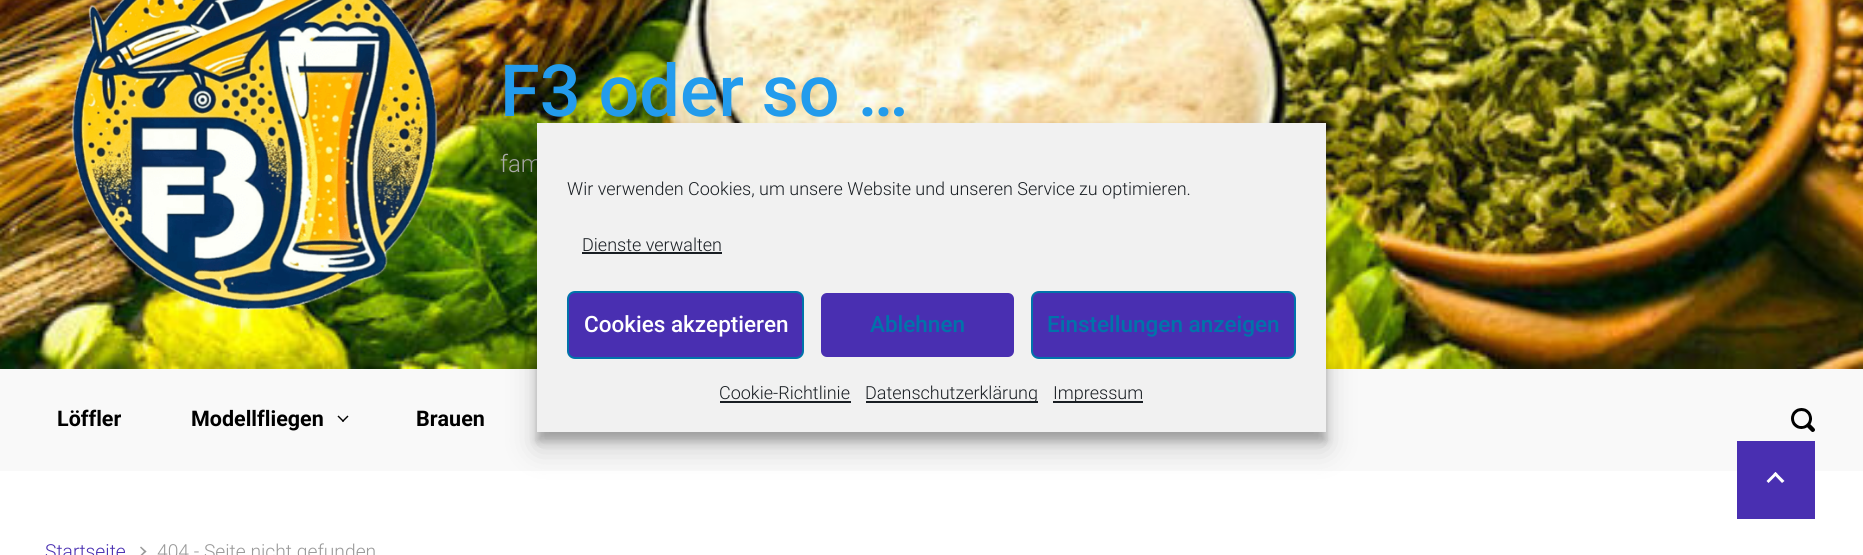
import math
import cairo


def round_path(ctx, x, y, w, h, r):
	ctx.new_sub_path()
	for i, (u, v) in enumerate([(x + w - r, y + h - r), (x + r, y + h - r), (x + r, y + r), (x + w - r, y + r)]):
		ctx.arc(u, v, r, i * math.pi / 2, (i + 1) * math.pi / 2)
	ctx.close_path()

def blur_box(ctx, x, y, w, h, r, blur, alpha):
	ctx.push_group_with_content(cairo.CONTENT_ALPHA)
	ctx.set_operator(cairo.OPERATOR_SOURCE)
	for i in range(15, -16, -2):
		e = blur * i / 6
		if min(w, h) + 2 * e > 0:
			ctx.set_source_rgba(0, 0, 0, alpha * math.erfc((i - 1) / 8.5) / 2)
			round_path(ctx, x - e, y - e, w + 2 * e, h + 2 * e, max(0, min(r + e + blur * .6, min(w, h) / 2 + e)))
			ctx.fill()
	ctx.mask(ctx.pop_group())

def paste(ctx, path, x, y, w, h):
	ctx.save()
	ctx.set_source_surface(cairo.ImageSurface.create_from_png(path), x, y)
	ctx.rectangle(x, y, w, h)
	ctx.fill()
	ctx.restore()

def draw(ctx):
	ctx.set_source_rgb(0.976, 0.976, 0.976)
	ctx.paint()
	paste(ctx, 'media/1.png', 0, 0, 1863, 369)
	paste(ctx, 'media/2.png', 71, 0, 367, 310)
	ctx.select_font_face('Roboto Medium')
	ctx.set_font_size(72)
	ctx.set_source_rgb(0.137, 0.612, 0.929)
	ctx.move_to(500, 116)
	ctx.show_text('F3 oder so …')
	ctx.select_font_face('Roboto Light')
	ctx.set_font_size(24)
	ctx.set_source_rgb(0.667, 0.667, 0.667)
	ctx.move_to(500, 172)
	ctx.show_text('fam')
	ctx.select_font_face('Roboto', cairo.FONT_SLANT_NORMAL, cairo.FONT_WEIGHT_BOLD)
	ctx.set_font_size(21.5)
	ctx.set_source_rgb(0, 0, 0)
	ctx.move_to(57, 426)
	ctx.show_text('Löffler')
	ctx.move_to(191, 426)
	ctx.show_text('Modellfliegen')
	ctx.new_path()
	ctx.move_to(347.5, 415.5)
	ctx.line_to(348.5, 416.5)
	ctx.line_to(343, 422)
	ctx.line_to(342, 421)
	ctx.close_path()
	ctx.fill()
	ctx.new_path()
	ctx.move_to(338.5, 415.5)
	ctx.line_to(344, 421)
	ctx.line_to(343, 422)
	ctx.line_to(337.5, 416.5)
	ctx.close_path()
	ctx.fill()
	ctx.move_to(416, 426)
	ctx.show_text('Brauen')
	paste(ctx, 'media/3.png', 1791, 408, 24, 24)
	ctx.set_source_rgb(1, 1, 1)
	ctx.rectangle(0, 471, 1863, 84)
	ctx.fill()
	ctx.set_source_rgb(0.286, 0.184, 0.694)
	ctx.rectangle(1737, 441, 78, 78)
	ctx.fill()
	ctx.set_source_rgb(1, 1, 1)
	ctx.new_path()
	ctx.move_to(1766.5, 481)
	ctx.line_to(1775.5, 472)
	ctx.line_to(1777.5, 474)
	ctx.line_to(1768.5, 483)
	ctx.close_path()
	ctx.fill()
	ctx.new_path()
	ctx.move_to(1773.5, 474)
	ctx.line_to(1775.5, 472)
	ctx.line_to(1784.5, 481)
	ctx.line_to(1782, 483)
	ctx.close_path()
	ctx.fill()
	ctx.select_font_face('Roboto Light')
	ctx.set_font_size(19.25)
	ctx.set_source_rgb(0.286, 0.184, 0.694)
	ctx.move_to(45, 558)
	ctx.show_text('Startseite')
	ctx.set_source_rgb(0.6, 0.6, 0.6)
	ctx.new_path()
	ctx.move_to(140, 547.5)
	ctx.line_to(141, 546.5)
	ctx.line_to(146.5, 551.5)
	ctx.line_to(145, 552.5)
	ctx.close_path()
	ctx.fill()
	ctx.new_path()
	ctx.move_to(140, 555.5)
	ctx.line_to(145, 550.5)
	ctx.line_to(146.5, 551.5)
	ctx.line_to(141, 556.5)
	ctx.close_path()
	ctx.fill()
	ctx.move_to(157, 558)
	ctx.show_text('404 - Seite nicht gefunden')
	ctx.set_source_rgb(0, 0, 0)
	blur_box(ctx, 537, 132, 789, 309, 0, 4.5, 0.23)
	blur_box(ctx, 537, 138, 789, 309, 0, 15, 0.19)
	ctx.set_source_rgb(0.945, 0.945, 0.945)
	ctx.rectangle(537, 123, 789, 309)
	ctx.fill()
	ctx.set_font_size(18)
	ctx.set_source_rgb(0.098, 0.118, 0.137)
	ctx.move_to(567, 195)
	ctx.show_text('Wir verwenden Cookies, um unsere Website und unseren Service zu optimieren.')
	ctx.move_to(582, 251)
	ctx.show_text('Dienste verwalten')
	ctx.rectangle(582, 252, 140, 2)
	ctx.fill()
	ctx.set_source_rgb(0.286, 0.184, 0.694)
	round_path(ctx, 568, 292, 235, 66, 7)
	ctx.fill_preserve()
	ctx.set_source_rgb(0, 0.451, 0.667)
	ctx.stroke()
	ctx.select_font_face('Roboto Medium')
	ctx.set_font_size(22.5)
	ctx.set_source_rgb(1, 1, 1)
	ctx.move_to(584, 332)
	ctx.show_text('Cookies akzeptieren')
	ctx.set_source_rgb(0.286, 0.184, 0.694)
	round_path(ctx, 820, 292, 195, 66, 7)
	ctx.fill_preserve()
	ctx.set_source_rgb(0.945, 0.945, 0.945)
	ctx.stroke()
	ctx.set_source_rgb(0, 0.451, 0.667)
	ctx.move_to(870, 332)
	ctx.show_text('Ablehnen')
	ctx.set_source_rgb(0.286, 0.184, 0.694)
	round_path(ctx, 1032, 292, 263, 66, 7)
	ctx.fill_preserve()
	ctx.set_source_rgb(0, 0.451, 0.667)
	ctx.stroke()
	ctx.move_to(1047, 332)
	ctx.show_text('Einstellungen anzeigen')
	ctx.select_font_face('Roboto Light')
	ctx.set_font_size(18)
	ctx.set_source_rgb(0.098, 0.118, 0.137)
	ctx.move_to(719, 399)
	ctx.show_text('Cookie-Richtlinie')
	ctx.rectangle(720, 401, 131, 2)
	ctx.fill()
	ctx.rectangle(866, 401, 172, 2)
	ctx.fill()
	ctx.move_to(865, 399)
	ctx.show_text('Datenschutzerklärung')
	ctx.rectangle(1053, 401, 90, 2)
	ctx.fill()
	ctx.move_to(1053, 399)
	ctx.show_text('Impressum')


surface = cairo.ImageSurface(cairo.FORMAT_RGB24, 1863, 555)
ctx = cairo.Context(surface)
options = cairo.FontOptions()
options.set_hint_metrics(cairo.HINT_METRICS_OFF)
options.set_hint_style(cairo.HINT_STYLE_NONE)
ctx.set_font_options(options)
ctx.set_miter_limit(4)
draw(ctx)
surface.write_to_png('image.png')
